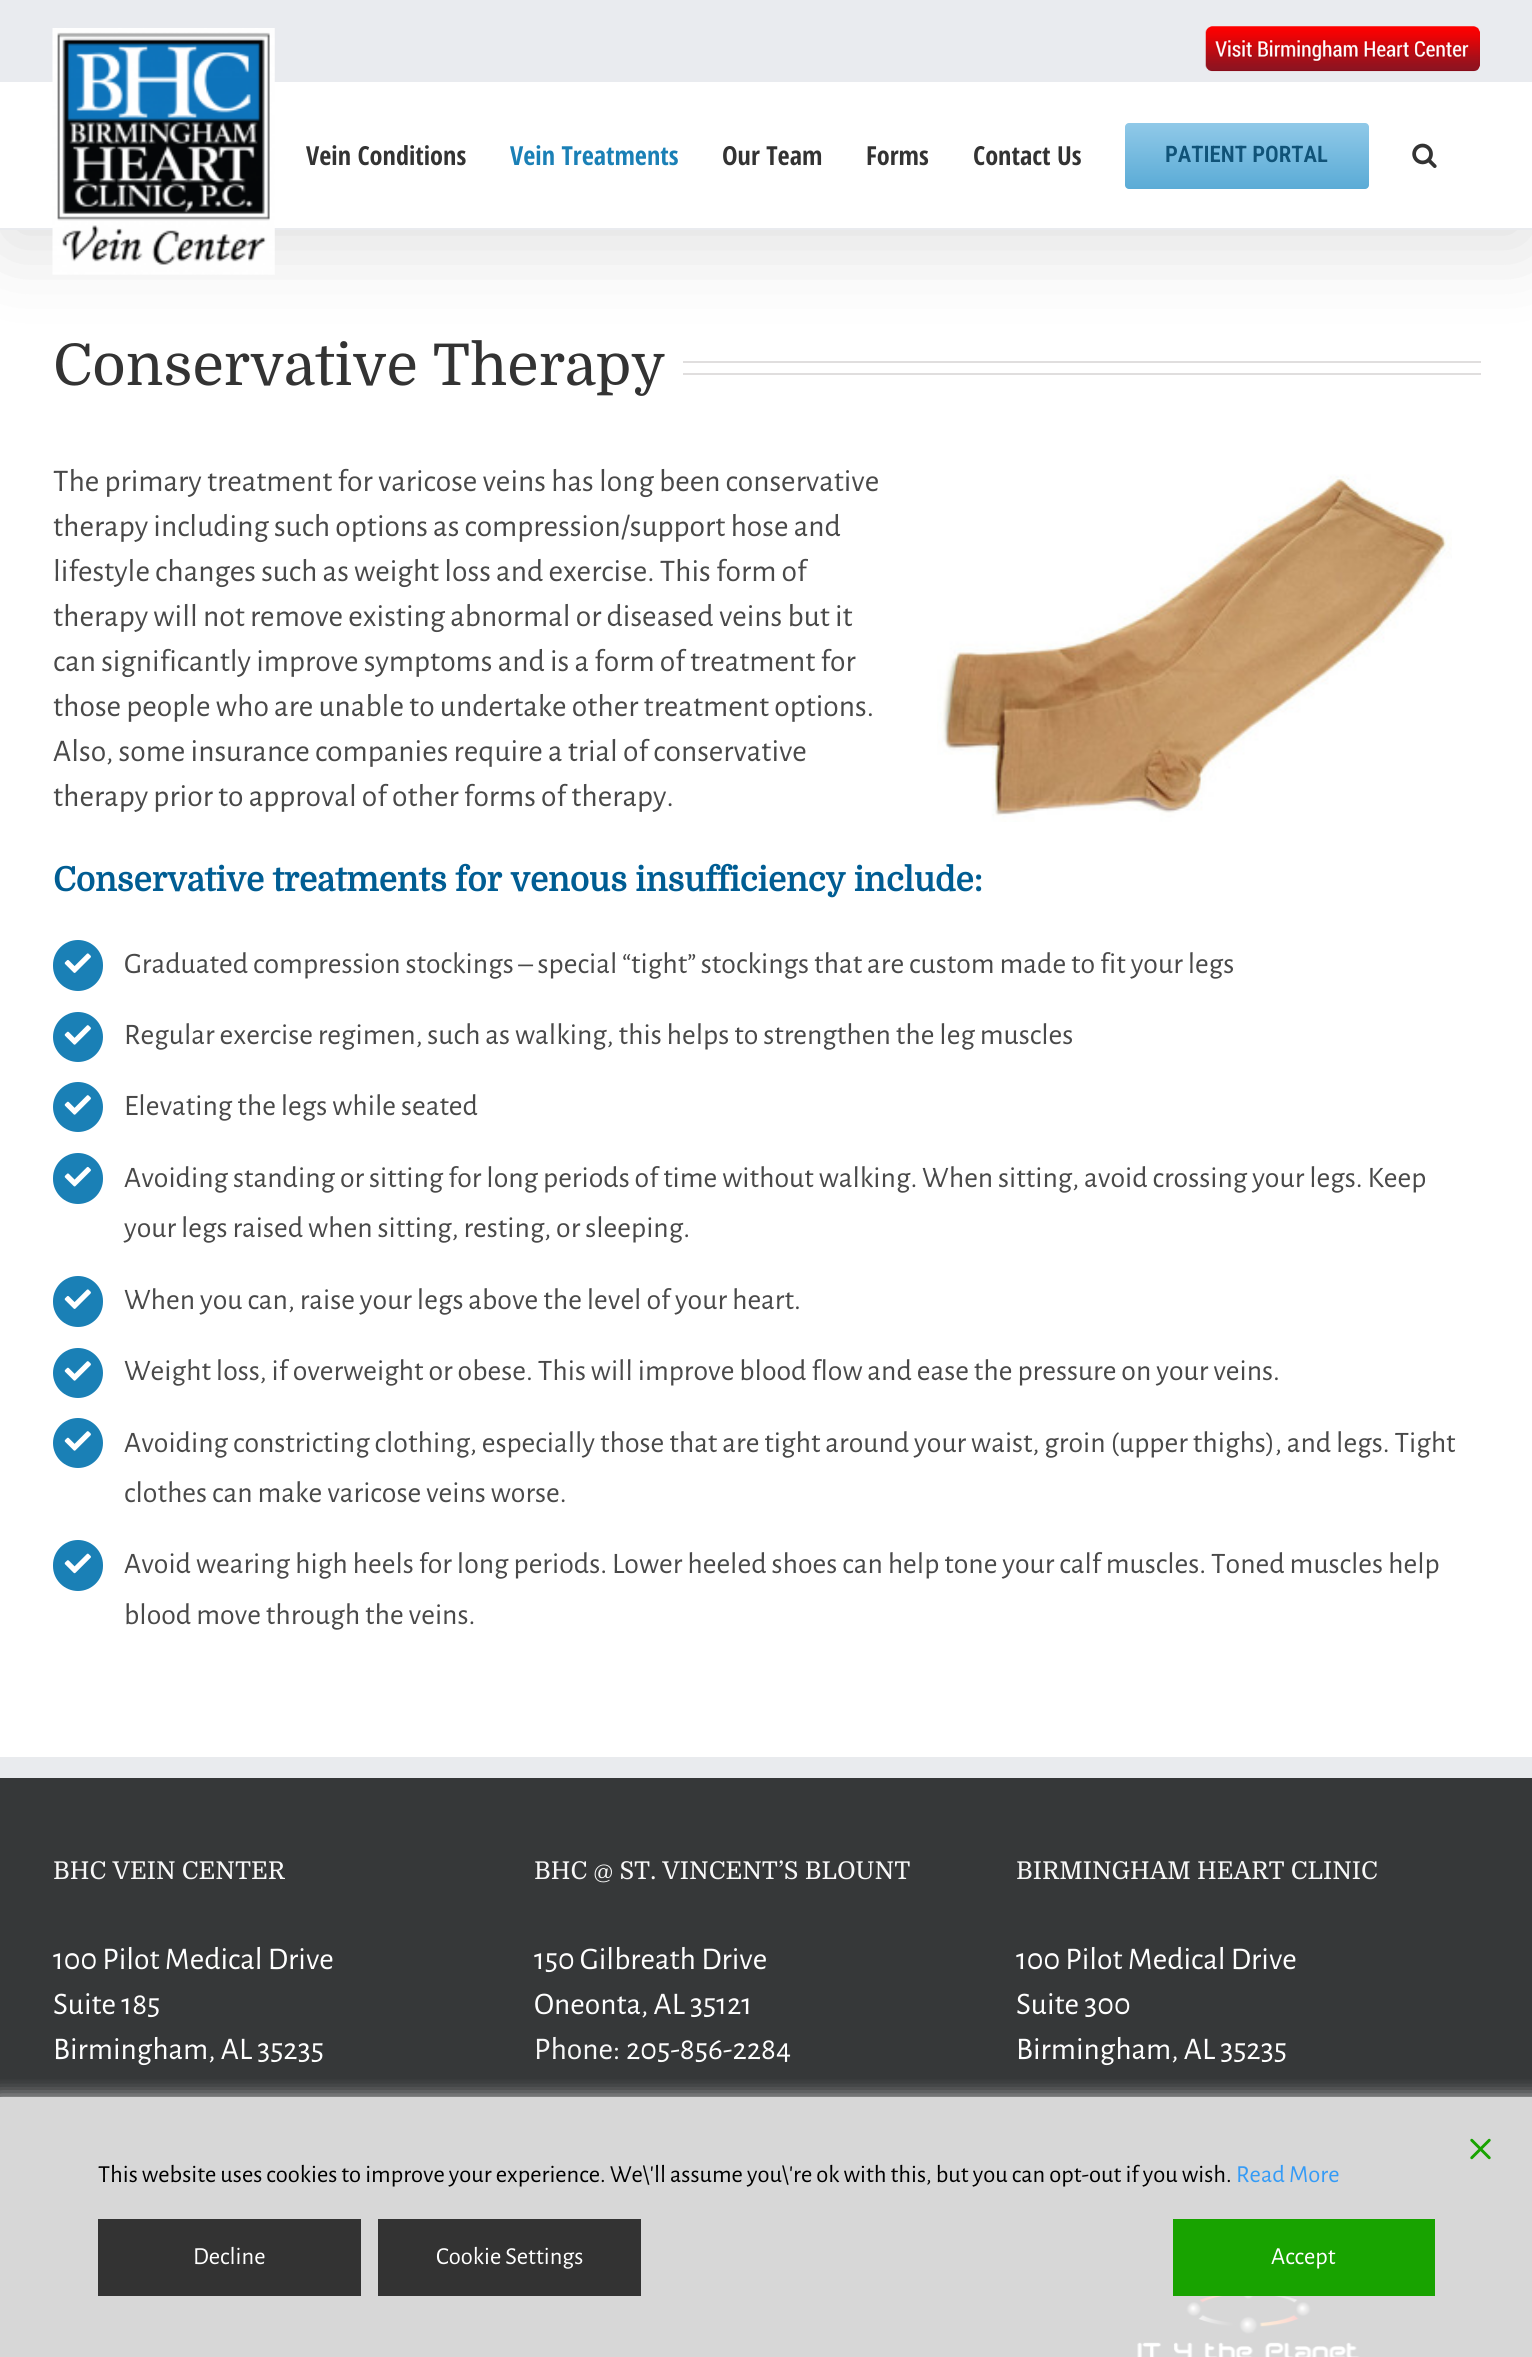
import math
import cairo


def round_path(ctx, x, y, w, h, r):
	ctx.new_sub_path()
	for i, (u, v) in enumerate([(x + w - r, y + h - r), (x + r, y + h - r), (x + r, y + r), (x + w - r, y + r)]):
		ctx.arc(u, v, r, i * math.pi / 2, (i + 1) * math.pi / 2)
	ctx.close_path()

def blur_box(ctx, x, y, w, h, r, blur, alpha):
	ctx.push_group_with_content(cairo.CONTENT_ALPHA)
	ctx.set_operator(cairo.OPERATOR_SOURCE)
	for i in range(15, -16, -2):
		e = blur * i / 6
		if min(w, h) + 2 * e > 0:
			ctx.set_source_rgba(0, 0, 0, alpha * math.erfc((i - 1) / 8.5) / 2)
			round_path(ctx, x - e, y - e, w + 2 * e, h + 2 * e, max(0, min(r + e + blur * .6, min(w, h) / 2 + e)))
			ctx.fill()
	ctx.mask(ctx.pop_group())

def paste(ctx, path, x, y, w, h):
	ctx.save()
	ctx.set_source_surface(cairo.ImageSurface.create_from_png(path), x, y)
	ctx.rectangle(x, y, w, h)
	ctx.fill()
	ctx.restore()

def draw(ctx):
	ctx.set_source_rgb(1, 1, 1)
	ctx.paint()
	ctx.set_source_rgb(0.878, 0.871, 0.871)
	ctx.rectangle(683, 361, 798, 2)
	ctx.fill()
	ctx.rectangle(683, 373, 798, 2)
	ctx.fill()
	ctx.set_source_rgb(0, 0, 0)
	blur_box(ctx, 4, 21, 1526, 222, 0, 44, 0.14)
	ctx.set_source_rgb(0.914, 0.918, 0.937)
	ctx.rectangle(0, 0, 1532, 82)
	ctx.fill()
	paste(ctx, 'media/1.png', 1205, 26, 275, 46)
	ctx.set_source_rgb(1, 1, 1)
	ctx.rectangle(0, 82, 1532, 146)
	ctx.fill()
	ctx.set_source_rgb(0.914, 0.918, 0.937)
	ctx.rectangle(0, 228, 1532, 2)
	ctx.fill()
	paste(ctx, 'media/2.png', 52, 28, 223, 247)
	ctx.select_font_face('Open Sans Condensed', cairo.FONT_SLANT_NORMAL, cairo.FONT_WEIGHT_BOLD)
	ctx.set_font_size(26.25)
	ctx.set_source_rgb(0.2, 0.2, 0.2)
	ctx.move_to(306, 165)
	ctx.show_text('Vein Conditions')
	ctx.set_source_rgb(0.102, 0.502, 0.714)
	ctx.move_to(510, 165)
	ctx.show_text('Vein Treatments')
	ctx.set_source_rgb(0.2, 0.2, 0.2)
	for x, y, s in [
		(722, 165, 'Our Team'),
		(866, 165, 'Forms'),
		(973, 165, 'Contact Us'),
	]:
		ctx.move_to(x, y)
		ctx.show_text(s)
	gradient = cairo.LinearGradient(1247, 123, 1247, 189)
	gradient.add_color_stop_rgba(0, 0.565, 0.788, 0.91, 1)
	gradient.add_color_stop_rgba(1, 0.353, 0.671, 0.839, 1)
	ctx.set_source(gradient)
	round_path(ctx, 1125, 123, 244, 66, 4)
	ctx.fill()
	ctx.select_font_face('Roboto Condensed SemiBold')
	ctx.set_font_size(22.75)
	ctx.set_source_rgb(0.063, 0.325, 0.471)
	ctx.move_to(1165, 162)
	ctx.show_text('PATIENT PORTAL')
	paste(ctx, 'media/3.png', 1412, 143, 25, 25)
	ctx.select_font_face('Domine')
	ctx.set_font_size(57.5)
	ctx.set_source_rgb(0.2, 0.2, 0.2)
	ctx.move_to(53, 385)
	ctx.show_text('Conservative Therapy')
	ctx.select_font_face('Alegreya Sans')
	ctx.set_font_size(31.5)
	ctx.set_source_rgb(0.286, 0.286, 0.286)
	for x, y, s in [
		(53, 491, 'The primary treatment for varicose veins has long been conservative'),
		(53, 536, 'therapy including such options as compression/support hose and'),
		(53, 581, 'lifestyle changes such as weight loss and exercise. This form of'),
		(53, 626, 'therapy will not remove existing abnormal or diseased veins but it'),
		(53, 671, 'can significantly improve symptoms and is a form of treatment for'),
		(53, 716, 'those people who are unable to undertake other treatment options.'),
		(53, 761, 'Also, some insurance companies require a trial of conservative'),
		(53, 806, 'therapy prior to approval of other forms of therapy.'),
	]:
		ctx.move_to(x, y)
		ctx.show_text(s)
	paste(ctx, 'media/4.png', 937, 474, 515, 348)
	ctx.select_font_face('Domine', cairo.FONT_SLANT_NORMAL, cairo.FONT_WEIGHT_BOLD)
	ctx.set_font_size(33.25)
	ctx.set_source_rgb(0, 0.365, 0.576)
	ctx.move_to(53, 891)
	ctx.show_text('Conservative treatments for venous insufficiency include:')
	ctx.set_source_rgb(0.102, 0.502, 0.714)
	round_path(ctx, 53, 940, 50, 51, 25)
	ctx.fill()
	paste(ctx, 'media/5.png', 64, 953, 27, 20)
	ctx.select_font_face('Alegreya Sans')
	ctx.set_font_size(29.75)
	ctx.set_source_rgb(0.286, 0.286, 0.286)
	ctx.move_to(124, 973)
	ctx.show_text('Graduated compression stockings – special “tight” stockings that are custom made to fit your legs')
	ctx.set_source_rgb(0.102, 0.502, 0.714)
	ctx.new_path()
	ctx.arc(78, 1037, 25, 0, 2 * math.pi)
	ctx.fill()
	paste(ctx, 'media/6.png', 64, 1025, 27, 20)
	ctx.set_source_rgb(0.286, 0.286, 0.286)
	ctx.move_to(124, 1044)
	ctx.show_text('Regular exercise regimen, such as walking, this helps to strengthen the leg muscles')
	ctx.set_source_rgb(0.102, 0.502, 0.714)
	ctx.new_path()
	ctx.arc(78, 1107, 25, 0, 2 * math.pi)
	ctx.fill()
	paste(ctx, 'media/6.png', 64, 1095, 27, 20)
	ctx.set_source_rgb(0.286, 0.286, 0.286)
	ctx.move_to(124, 1115)
	ctx.show_text('Elevating the legs while seated')
	ctx.set_source_rgb(0.102, 0.502, 0.714)
	round_path(ctx, 53, 1153, 50, 51, 25)
	ctx.fill()
	paste(ctx, 'media/7.png', 64, 1166, 27, 21)
	ctx.set_source_rgb(0.286, 0.286, 0.286)
	ctx.move_to(124, 1187)
	ctx.show_text('Avoiding standing or sitting for long periods of time without walking. When sitting, avoid crossing your legs. Keep')
	ctx.move_to(124, 1237)
	ctx.show_text('your legs raised when sitting, resting, or sleeping.')
	ctx.set_source_rgb(0.102, 0.502, 0.714)
	round_path(ctx, 53, 1276, 50, 51, 25)
	ctx.fill()
	paste(ctx, 'media/5.png', 64, 1289, 27, 20)
	ctx.set_source_rgb(0.286, 0.286, 0.286)
	ctx.move_to(124, 1309)
	ctx.show_text('When you can, raise your legs above the level of your heart.')
	ctx.set_source_rgb(0.102, 0.502, 0.714)
	ctx.new_path()
	ctx.arc(78, 1373, 25, 0, 2 * math.pi)
	ctx.fill()
	paste(ctx, 'media/6.png', 64, 1361, 27, 20)
	ctx.set_source_rgb(0.286, 0.286, 0.286)
	ctx.move_to(124, 1380)
	ctx.show_text('Weight loss, if overweight or obese. This will improve blood flow and ease the pressure on your veins.')
	ctx.set_source_rgb(0.102, 0.502, 0.714)
	ctx.new_path()
	ctx.arc(78, 1443, 25, 0, 2 * math.pi)
	ctx.fill()
	paste(ctx, 'media/6.png', 64, 1431, 27, 20)
	ctx.set_source_rgb(0.286, 0.286, 0.286)
	ctx.move_to(124, 1452)
	ctx.show_text('Avoiding constricting clothing, especially those that are tight around your waist, groin (upper thighs), and legs. Tight')
	ctx.move_to(124, 1502)
	ctx.show_text('clothes can make varicose veins worse.')
	ctx.set_source_rgb(0.102, 0.502, 0.714)
	round_path(ctx, 53, 1540, 50, 51, 25)
	ctx.fill()
	paste(ctx, 'media/8.png', 64, 1553, 27, 21)
	ctx.set_source_rgb(0.286, 0.286, 0.286)
	ctx.move_to(124, 1573)
	ctx.show_text('Avoid wearing high heels for long periods. Lower heeled shoes can help tone your calf muscles. Toned muscles help')
	ctx.move_to(124, 1624)
	ctx.show_text('blood move through the veins.')
	ctx.set_source_rgb(0.212, 0.22, 0.224)
	ctx.rectangle(0, 1778, 1532, 579)
	ctx.fill()
	ctx.set_source_rgb(0.914, 0.918, 0.933)
	ctx.rectangle(0, 1757, 1532, 21)
	ctx.fill()
	ctx.select_font_face('Domine')
	ctx.set_font_size(24.5)
	ctx.set_source_rgb(0.969, 0.969, 0.969)
	ctx.move_to(53, 1879)
	ctx.show_text('BHC VEIN CENTER')
	ctx.select_font_face('Alegreya Sans')
	ctx.set_font_size(31.5)
	ctx.set_source_rgb(1, 1, 1)
	for x, y, s in [
		(53, 1969, '100 Pilot Medical Drive'),
		(53, 2014, 'Suite 185'),
		(53, 2059, 'Birmingham, AL 35235'),
	]:
		ctx.move_to(x, y)
		ctx.show_text(s)
	ctx.select_font_face('Domine')
	ctx.set_font_size(24.5)
	ctx.set_source_rgb(0.969, 0.969, 0.969)
	ctx.move_to(534, 1879)
	ctx.show_text('BHC @ ST. VINCENT’S BLOUNT')
	ctx.select_font_face('Alegreya Sans')
	ctx.set_font_size(31.5)
	ctx.set_source_rgb(1, 1, 1)
	ctx.move_to(534, 1969)
	ctx.show_text('150 Gilbreath Drive')
	ctx.move_to(534, 2014)
	ctx.show_text('Oneonta, AL 35121')
	ctx.set_source_rgb(0.969, 0.969, 0.969)
	ctx.move_to(534, 2059)
	ctx.show_text('Phone:')
	ctx.set_source_rgb(1, 1, 1)
	ctx.move_to(626, 2059)
	ctx.show_text('205-856-2284')
	ctx.select_font_face('Domine')
	ctx.set_font_size(24.5)
	ctx.set_source_rgb(0.969, 0.969, 0.969)
	ctx.move_to(1016, 1879)
	ctx.show_text('BIRMINGHAM HEART CLINIC')
	ctx.select_font_face('Alegreya Sans')
	ctx.set_font_size(31.5)
	ctx.set_source_rgb(1, 1, 1)
	for x, y, s in [
		(1016, 1969, '100 Pilot Medical Drive'),
		(1016, 2014, 'Suite 300'),
		(1016, 2059, 'Birmingham, AL 35235'),
	]:
		ctx.move_to(x, y)
		ctx.show_text(s)
	paste(ctx, 'media/9.png', 1137, 2296, 223, 61)
	ctx.save()
	ctx.rectangle(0, 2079, 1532, 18)
	ctx.clip()
	ctx.set_source_rgb(0.867, 0.867, 0.867)
	blur_box(ctx, -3, 2098, 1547, 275, 0, 9.5, 1)
	ctx.restore()
	ctx.set_source_rgba(1, 1, 1, 0.8)
	ctx.rectangle(0, 2097, 1532, 260)
	ctx.fill()
	paste(ctx, 'media/10.png', 1470, 2138, 21, 22)
	ctx.set_font_size(24.5)
	ctx.set_source_rgb(0, 0, 0)
	ctx.move_to(98, 2182)
	ctx.show_text('This website uses cookies to improve your experience. We\\\'ll assume you\\\'re ok with this, but you can opt-out if you wish.')
	ctx.set_source_rgb(0.208, 0.608, 0.961)
	ctx.move_to(1236, 2182)
	ctx.show_text('Read More')
	ctx.set_source_rgb(0.2, 0.2, 0.2)
	ctx.rectangle(98, 2219, 263, 77)
	ctx.fill()
	ctx.set_source_rgb(1, 1, 1)
	ctx.move_to(193, 2264)
	ctx.show_text('Decline')
	ctx.set_source_rgb(0.2, 0.2, 0.2)
	ctx.rectangle(378, 2219, 263, 77)
	ctx.fill()
	ctx.set_source_rgb(1, 1, 1)
	ctx.move_to(436, 2264)
	ctx.show_text('Cookie Settings')
	ctx.set_source_rgb(0.094, 0.639, 0)
	ctx.rectangle(1173, 2219, 262, 77)
	ctx.fill()
	ctx.set_source_rgb(1, 1, 1)
	ctx.move_to(1271, 2264)
	ctx.show_text('Accept')


surface = cairo.ImageSurface(cairo.FORMAT_RGB24, 1532, 2357)
ctx = cairo.Context(surface)
options = cairo.FontOptions()
options.set_hint_metrics(cairo.HINT_METRICS_OFF)
options.set_hint_style(cairo.HINT_STYLE_NONE)
ctx.set_font_options(options)
ctx.set_miter_limit(4)
draw(ctx)
surface.write_to_png('image.png')
